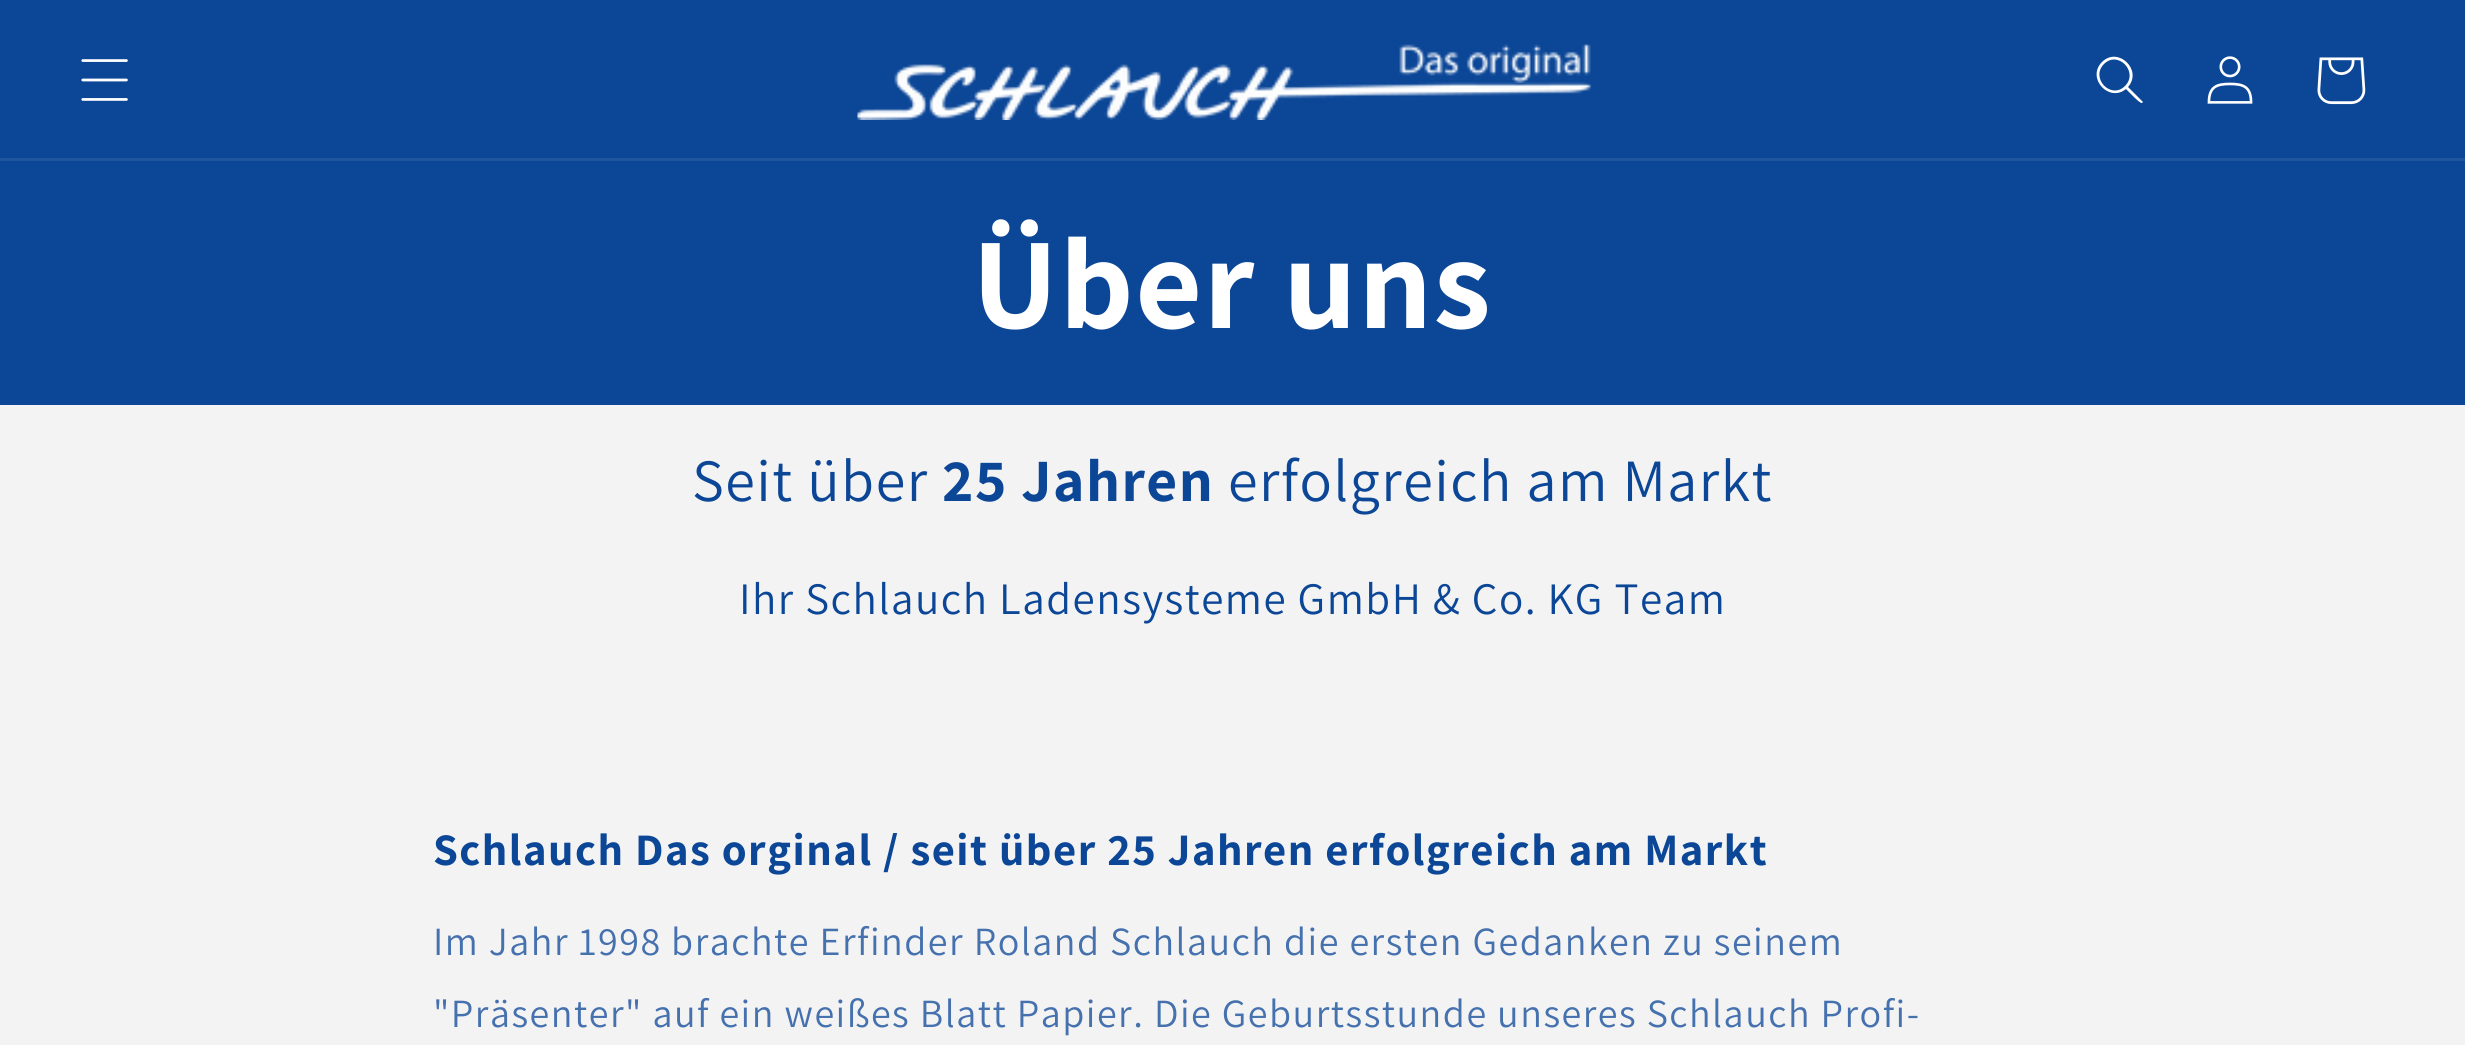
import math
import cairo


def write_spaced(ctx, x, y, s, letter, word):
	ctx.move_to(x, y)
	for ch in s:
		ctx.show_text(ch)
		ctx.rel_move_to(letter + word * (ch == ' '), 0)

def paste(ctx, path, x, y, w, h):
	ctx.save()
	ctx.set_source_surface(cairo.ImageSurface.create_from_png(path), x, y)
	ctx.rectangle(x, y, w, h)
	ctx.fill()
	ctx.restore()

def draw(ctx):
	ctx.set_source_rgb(0.953, 0.953, 0.953)
	ctx.paint()
	ctx.set_source_rgb(0.043, 0.275, 0.592)
	ctx.rectangle(0, 0, 2465, 158)
	ctx.fill()
	ctx.set_source_rgb(0.122, 0.333, 0.624)
	ctx.rectangle(0, 158, 2465, 3)
	ctx.fill()
	paste(ctx, 'media/1.png', 81, 59, 47, 42)
	paste(ctx, 'media/2.png', 857, 44, 735, 76)
	ctx.set_source_rgb(1, 1, 1)
	ctx.set_fill_rule(cairo.FILL_RULE_EVEN_ODD)
	ctx.new_path()
	ctx.move_to(2125, 86)
	ctx.curve_to(2111, 100, 2090, 78, 2104, 64)
	ctx.curve_to(2118, 50, 2139, 72, 2125, 86)
	ctx.close_path()
	ctx.move_to(2126, 89)
	ctx.curve_to(2109, 103, 2086, 78, 2102, 62)
	ctx.curve_to(2118, 46, 2143, 70, 2128, 87)
	ctx.line_to(2143, 102)
	ctx.line_to(2142, 103)
	ctx.curve_to(2140, 104, 2128, 91, 2126, 89)
	ctx.close_path()
	ctx.fill()
	paste(ctx, 'media/3.png', 2207, 56, 46, 48)
	paste(ctx, 'media/4.png', 2317, 57, 49, 48)
	ctx.set_source_rgb(0.043, 0.275, 0.592)
	ctx.rectangle(0, 161, 2465, 244)
	ctx.fill()
	ctx.select_font_face('Assistant', cairo.FONT_SLANT_NORMAL, cairo.FONT_WEIGHT_BOLD)
	ctx.set_font_size(130)
	ctx.set_source_rgb(1, 1, 1)
	write_spaced(ctx, 972, 328, 'Über uns', 1.5, 0)
	ctx.select_font_face('Assistant')
	ctx.set_font_size(60)
	ctx.set_source_rgb(0.043, 0.275, 0.592)
	write_spaced(ctx, 692, 501, 'Seit über', 1.5, 0)
	ctx.select_font_face('Assistant', cairo.FONT_SLANT_NORMAL, cairo.FONT_WEIGHT_BOLD)
	write_spaced(ctx, 942, 501, '25 Jahren', 1.5, 0)
	ctx.select_font_face('Assistant')
	write_spaced(ctx, 1228, 501, 'erfolgreich am Markt', 1.5, 0)
	ctx.set_font_size(45)
	write_spaced(ctx, 739, 614, 'Ihr Schlauch Ladensysteme GmbH & Co. KG Team', 1.5, 0)
	ctx.select_font_face('Assistant', cairo.FONT_SLANT_NORMAL, cairo.FONT_WEIGHT_BOLD)
	write_spaced(ctx, 433, 865, 'Schlauch Das orginal / seit über 25 Jahren erfolgreich am Markt', 1.5, 0)
	ctx.select_font_face('Assistant')
	ctx.set_font_size(40)
	ctx.set_source_rgb(0.271, 0.443, 0.682)
	write_spaced(ctx, 433, 955, 'Im Jahr 1998 brachte Erfinder Roland Schlauch die ersten Gedanken zu seinem', 1.5, 0)
	write_spaced(ctx, 433, 1027, '"Präsenter" auf ein weißes Blatt Papier. Die Geburtsstunde unseres Schlauch Profi-', 1.5, 0)


surface = cairo.ImageSurface(cairo.FORMAT_RGB24, 2465, 1045)
ctx = cairo.Context(surface)
options = cairo.FontOptions()
options.set_hint_metrics(cairo.HINT_METRICS_OFF)
options.set_hint_style(cairo.HINT_STYLE_NONE)
ctx.set_font_options(options)
ctx.set_miter_limit(4)
draw(ctx)
surface.write_to_png('image.png')
